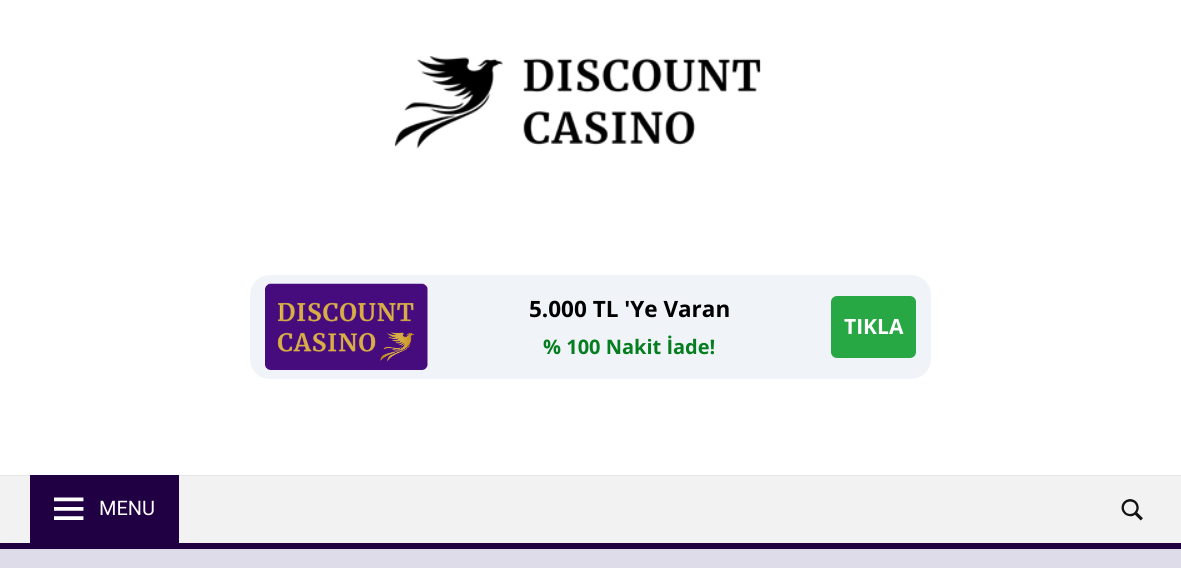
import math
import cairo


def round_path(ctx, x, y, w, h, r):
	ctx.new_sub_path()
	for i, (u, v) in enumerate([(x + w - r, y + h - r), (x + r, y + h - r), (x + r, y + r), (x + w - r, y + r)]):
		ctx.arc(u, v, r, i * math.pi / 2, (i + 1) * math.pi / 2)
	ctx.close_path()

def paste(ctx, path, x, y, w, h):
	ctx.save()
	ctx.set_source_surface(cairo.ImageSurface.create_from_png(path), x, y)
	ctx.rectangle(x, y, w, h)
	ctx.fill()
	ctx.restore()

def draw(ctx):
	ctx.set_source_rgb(0.871, 0.863, 0.91)
	ctx.paint()
	ctx.set_source_rgb(1, 1, 1)
	ctx.rectangle(0, 0, 1181, 475)
	ctx.fill()
	paste(ctx, 'media/1.png', 394, 56, 367, 93)
	ctx.set_source_rgb(0.941, 0.953, 0.969)
	round_path(ctx, 250, 275, 681, 104, 20)
	ctx.fill()
	paste(ctx, 'media/2.png', 265, 283, 163, 87)
	ctx.select_font_face('Open Sans', cairo.FONT_SLANT_NORMAL, cairo.FONT_WEIGHT_BOLD)
	ctx.set_font_size(22.5)
	ctx.set_source_rgb(0, 0, 0)
	ctx.move_to(529, 317)
	ctx.show_text('5.000 TL \'Ye Varan')
	ctx.set_font_size(20)
	ctx.set_source_rgb(0.02, 0.494, 0.125)
	ctx.move_to(543, 354)
	ctx.show_text('% 100 Nakit İade!')
	ctx.set_source_rgb(0.157, 0.655, 0.271)
	round_path(ctx, 831, 296, 85, 62, 6)
	ctx.fill()
	ctx.set_font_size(21)
	ctx.set_source_rgb(1, 1, 1)
	ctx.move_to(844, 334)
	ctx.show_text('TIKLA')
	ctx.set_source_rgb(0.949, 0.949, 0.949)
	ctx.rectangle(0, 476, 1181, 67)
	ctx.fill()
	ctx.set_source_rgb(0.902, 0.902, 0.902)
	ctx.rectangle(0, 475, 1181, 1)
	ctx.fill()
	ctx.set_source_rgb(0.125, 0, 0.259)
	ctx.rectangle(0, 543, 1181, 6)
	ctx.rectangle(30, 475, 149, 68)
	ctx.fill()
	paste(ctx, 'media/3.png', 54, 497, 30, 23)
	ctx.select_font_face('Roboto')
	ctx.set_font_size(20)
	ctx.set_source_rgb(1, 1, 1)
	ctx.move_to(99, 515)
	ctx.show_text('MENU')
	paste(ctx, 'media/4.png', 1121, 499, 22, 22)


surface = cairo.ImageSurface(cairo.FORMAT_RGB24, 1181, 568)
ctx = cairo.Context(surface)
options = cairo.FontOptions()
options.set_hint_metrics(cairo.HINT_METRICS_OFF)
options.set_hint_style(cairo.HINT_STYLE_NONE)
ctx.set_font_options(options)
ctx.set_miter_limit(4)
draw(ctx)
surface.write_to_png('image.png')
